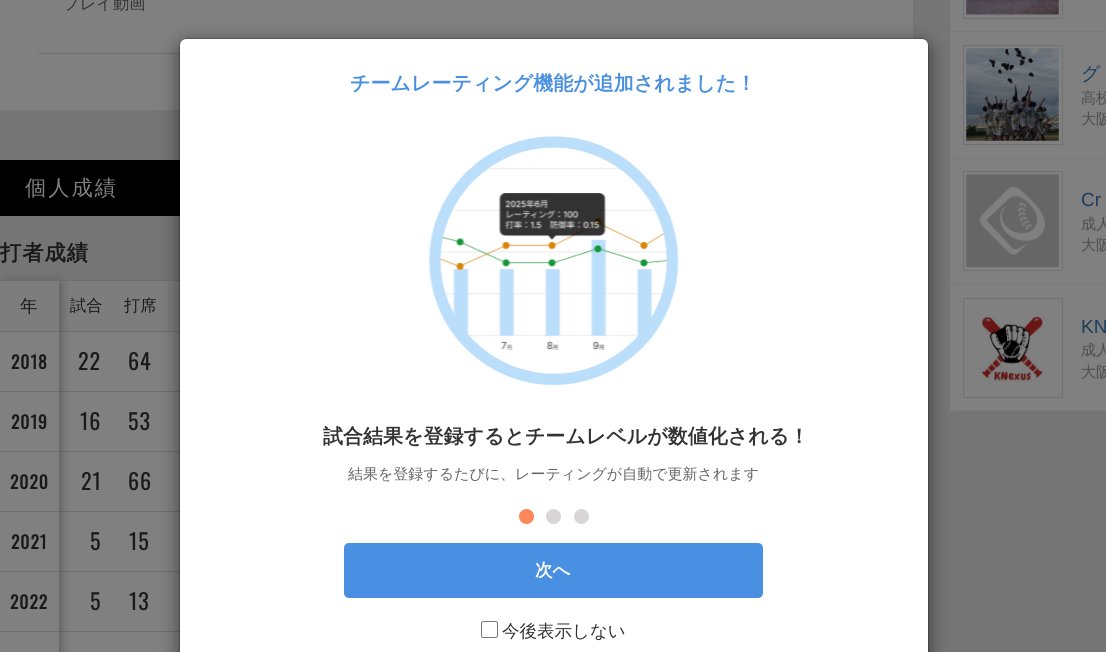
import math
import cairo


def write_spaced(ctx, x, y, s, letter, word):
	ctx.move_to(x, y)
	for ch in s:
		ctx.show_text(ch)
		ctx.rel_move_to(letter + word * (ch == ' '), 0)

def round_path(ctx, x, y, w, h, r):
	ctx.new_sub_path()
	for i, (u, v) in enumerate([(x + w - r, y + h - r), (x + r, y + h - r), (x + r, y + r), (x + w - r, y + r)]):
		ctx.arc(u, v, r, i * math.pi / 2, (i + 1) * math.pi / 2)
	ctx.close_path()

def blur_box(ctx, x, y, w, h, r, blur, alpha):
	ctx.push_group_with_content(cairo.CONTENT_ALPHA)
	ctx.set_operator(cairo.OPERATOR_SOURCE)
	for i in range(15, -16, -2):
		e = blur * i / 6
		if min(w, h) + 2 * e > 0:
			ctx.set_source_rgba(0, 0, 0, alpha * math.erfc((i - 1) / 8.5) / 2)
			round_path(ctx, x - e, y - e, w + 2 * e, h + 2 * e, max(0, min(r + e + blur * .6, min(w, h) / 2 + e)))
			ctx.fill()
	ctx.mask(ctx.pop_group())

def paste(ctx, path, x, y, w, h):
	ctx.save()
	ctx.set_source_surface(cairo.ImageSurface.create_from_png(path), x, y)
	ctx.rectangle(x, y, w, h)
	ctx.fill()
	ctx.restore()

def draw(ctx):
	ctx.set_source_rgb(0.459, 0.459, 0.459)
	ctx.paint()
	ctx.set_source_rgb(0.502, 0.502, 0.502)
	ctx.rectangle(0, 0, 913, 110)
	ctx.fill()
	ctx.set_source_rgb(0.443, 0.443, 0.443)
	ctx.rectangle(38, 53, 142, 1)
	ctx.fill()
	ctx.select_font_face('WenQuanYi Zen Hei Medium')
	ctx.set_font_size(16.25)
	ctx.set_source_rgb(0.2, 0.2, 0.2)
	ctx.move_to(63, 9)
	ctx.show_text('プレイ動画')
	ctx.set_source_rgb(0, 0, 0)
	ctx.rectangle(0, 160, 180, 56)
	ctx.fill()
	ctx.set_font_size(21.25)
	ctx.set_source_rgb(0.502, 0.502, 0.502)
	write_spaced(ctx, 25, 195, '個人成績', 2, 0)
	ctx.select_font_face('WenQuanYi Zen Hei', cairo.FONT_SLANT_NORMAL, cairo.FONT_WEIGHT_BOLD)
	ctx.set_source_rgb(0.102, 0.102, 0.102)
	write_spaced(ctx, 0, 260, '打者成績', 1, 0)
	ctx.set_source_rgb(0.502, 0.502, 0.502)
	ctx.rectangle(59, 332, 121, 320)
	ctx.fill()
	ctx.set_source_rgb(0.49, 0.49, 0.49)
	ctx.rectangle(59, 281, 121, 50)
	ctx.fill()
	ctx.set_source_rgb(0.435, 0.435, 0.435)
	ctx.rectangle(59, 280, 121, 1)
	ctx.rectangle(59, 331, 121, 1)
	ctx.rectangle(59, 391, 121, 1)
	ctx.rectangle(59, 451, 121, 1)
	ctx.rectangle(59, 511, 121, 1)
	ctx.rectangle(59, 571, 121, 1)
	ctx.rectangle(59, 631, 121, 1)
	ctx.fill()
	ctx.set_source_rgb(0.302, 0.302, 0.302)
	blur_box(ctx, 8, 284, 51, 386, 0, 6, 1)
	ctx.set_source_rgb(0.502, 0.502, 0.502)
	ctx.rectangle(0, 332, 59, 320)
	ctx.fill()
	ctx.set_source_rgb(0.49, 0.49, 0.49)
	ctx.rectangle(0, 281, 59, 50)
	ctx.fill()
	ctx.set_source_rgb(0.435, 0.435, 0.435)
	ctx.rectangle(0, 280, 59, 1)
	ctx.rectangle(0, 331, 59, 1)
	ctx.fill()
	ctx.select_font_face('WenQuanYi Zen Hei Medium')
	ctx.set_font_size(17.5)
	ctx.set_source_rgb(0.102, 0.102, 0.102)
	ctx.move_to(20, 312)
	ctx.show_text('年')
	ctx.select_font_face('Oswald', cairo.FONT_SLANT_NORMAL, cairo.FONT_WEIGHT_BOLD)
	write_spaced(ctx, 11, 369, '2018', 1, 0)
	ctx.set_source_rgb(0.435, 0.435, 0.435)
	ctx.rectangle(0, 391, 59, 1)
	ctx.fill()
	ctx.set_source_rgb(0.102, 0.102, 0.102)
	write_spaced(ctx, 11, 429, '2019', 1, 0)
	ctx.set_source_rgb(0.435, 0.435, 0.435)
	ctx.rectangle(0, 451, 59, 1)
	ctx.fill()
	ctx.set_source_rgb(0.102, 0.102, 0.102)
	write_spaced(ctx, 10, 489, '2020', 1, 0)
	ctx.set_source_rgb(0.435, 0.435, 0.435)
	ctx.rectangle(0, 511, 59, 1)
	ctx.fill()
	ctx.set_source_rgb(0.102, 0.102, 0.102)
	write_spaced(ctx, 11, 549, '2021', 1, 0)
	ctx.set_source_rgb(0.435, 0.435, 0.435)
	ctx.rectangle(0, 571, 59, 1)
	ctx.fill()
	ctx.set_source_rgb(0.102, 0.102, 0.102)
	write_spaced(ctx, 10, 609, '2022', 1, 0)
	ctx.set_source_rgb(0.435, 0.435, 0.435)
	ctx.rectangle(0, 631, 59, 1)
	ctx.fill()
	ctx.select_font_face('WenQuanYi Zen Hei Medium')
	ctx.set_font_size(16.25)
	ctx.set_source_rgb(0.102, 0.102, 0.102)
	ctx.move_to(70, 311)
	ctx.show_text('試合')
	ctx.move_to(124, 311)
	ctx.show_text('打席')
	ctx.select_font_face('Oswald')
	ctx.set_font_size(22)
	for x, y, s in [
		(78, 370, '22'),
		(128, 370, '64'),
		(80, 430, '16'),
		(128, 430, '53'),
		(81, 490, '21'),
		(128, 490, '66'),
		(90, 550, '5'),
		(129, 550, '15'),
		(90, 610, '5'),
		(129, 610, '13'),
	]:
		write_spaced(ctx, x, y, s, 1, 0)
	ctx.set_source_rgb(0.502, 0.502, 0.502)
	ctx.rectangle(950, 0, 156, 158)
	ctx.fill()
	ctx.set_source_rgb(0.475, 0.475, 0.475)
	ctx.rectangle(950, 31, 156, 1)
	ctx.rectangle(950, 158, 156, 1)
	ctx.fill()
	ctx.set_source_rgb(0.502, 0.502, 0.502)
	ctx.rectangle(950, 159, 156, 125)
	ctx.fill()
	ctx.set_source_rgb(0.475, 0.475, 0.475)
	ctx.rectangle(950, 284, 156, 1)
	ctx.fill()
	ctx.set_source_rgb(0.502, 0.502, 0.502)
	ctx.rectangle(950, 285, 156, 125)
	ctx.fill()
	ctx.set_source_rgb(0.475, 0.475, 0.475)
	ctx.rectangle(950, 410, 156, 1)
	ctx.fill()
	ctx.set_source_rgb(0, 0, 0)
	blur_box(ctx, 179, 44, 750, 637, 8, 9.5, 0.5)
	ctx.set_source_rgb(1, 1, 1)
	ctx.new_path()
	ctx.move_to(186, 39)
	ctx.line_to(922, 39)
	ctx.curve_to(925.5, 39, 928, 41.5, 928, 45)
	ctx.line_to(928, 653)
	ctx.line_to(180, 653)
	ctx.line_to(180, 45)
	ctx.curve_to(180, 41.5, 182.5, 39, 186, 39)
	ctx.close_path()
	ctx.fill()
	round_path(ctx, 179.5, 38.5, 749, 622, 7.5)
	ctx.set_source_rgba(0, 0, 0, 0.2)
	ctx.set_line_width(1)
	ctx.stroke()
	ctx.select_font_face('WenQuanYi Zen Hei', cairo.FONT_SLANT_NORMAL, cairo.FONT_WEIGHT_BOLD)
	ctx.set_font_size(20)
	ctx.set_source_rgb(0.29, 0.565, 0.886)
	ctx.move_to(350, 90)
	ctx.show_text('チームレーティング機能が追加されました！')
	paste(ctx, 'media/1.png', 428, 136, 251, 249)
	ctx.set_source_rgb(0.2, 0.2, 0.2)
	ctx.move_to(323, 443)
	ctx.show_text('試合結果を登録するとチームレベルが数値化される！')
	ctx.select_font_face('WenQuanYi Zen Hei Medium')
	ctx.set_font_size(15)
	ctx.set_source_rgb(0.4, 0.4, 0.4)
	ctx.move_to(348, 479)
	ctx.show_text('結果を登録するたびに、レーティングが自動で更新されます')
	ctx.set_source_rgb(0.992, 0.525, 0.357)
	ctx.new_path()
	ctx.arc(526.5, 516.5, 7.5, 0, 2 * math.pi)
	ctx.fill()
	ctx.set_source_rgb(0.847, 0.839, 0.839)
	ctx.arc(553.5, 516.5, 7.5, 0, 2 * math.pi)
	ctx.fill()
	ctx.arc(581.5, 516.5, 7.5, 0, 2 * math.pi)
	ctx.fill()
	ctx.set_source_rgb(0.29, 0.565, 0.886)
	round_path(ctx, 344, 543, 419, 55, 5)
	ctx.fill()
	ctx.select_font_face('WenQuanYi Zen Hei', cairo.FONT_SLANT_NORMAL, cairo.FONT_WEIGHT_BOLD)
	ctx.set_font_size(17.5)
	ctx.set_source_rgb(1, 1, 1)
	ctx.move_to(535, 576)
	ctx.show_text('次へ')
	round_path(ctx, 481.5, 621.5, 16, 16, 2)
	ctx.set_source_rgb(0.463, 0.463, 0.463)
	ctx.stroke()
	ctx.select_font_face('WenQuanYi Zen Hei Medium')
	ctx.set_source_rgb(0.2, 0.2, 0.2)
	ctx.move_to(502, 637)
	ctx.show_text('今後表示しない')
	ctx.rectangle(963.5, -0.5, 99, 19)
	ctx.set_source_rgb(0.443, 0.443, 0.443)
	ctx.stroke()
	paste(ctx, 'media/2.png', 966, 0, 93, 15)
	ctx.rectangle(963.5, 45.5, 99, 99)
	ctx.stroke()
	paste(ctx, 'media/3.png', 966, 48, 93, 93)
	ctx.set_font_size(19)
	ctx.set_source_rgb(0.102, 0.239, 0.361)
	ctx.move_to(1081, 80)
	ctx.show_text('グ')
	ctx.set_font_size(15)
	ctx.set_source_rgb(0.302, 0.302, 0.302)
	ctx.move_to(1081, 103)
	ctx.show_text('高校')
	ctx.move_to(1081, 124)
	ctx.show_text('大阪')
	ctx.rectangle(963.5, 171.5, 99, 99)
	ctx.set_source_rgb(0.443, 0.443, 0.443)
	ctx.stroke()
	paste(ctx, 'media/4.png', 966, 174, 93, 93)
	ctx.select_font_face('Liberation Sans')
	ctx.set_font_size(19)
	ctx.set_source_rgb(0.102, 0.239, 0.361)
	ctx.move_to(1081, 206)
	ctx.show_text('Cr')
	ctx.select_font_face('WenQuanYi Zen Hei Medium')
	ctx.set_font_size(15)
	ctx.set_source_rgb(0.302, 0.302, 0.302)
	ctx.move_to(1081, 229)
	ctx.show_text('成人')
	ctx.move_to(1081, 250)
	ctx.show_text('大阪')
	ctx.rectangle(963.5, 298.5, 99, 99)
	ctx.set_source_rgb(0.443, 0.443, 0.443)
	ctx.stroke()
	paste(ctx, 'media/5.png', 981, 316, 64, 66)
	ctx.select_font_face('Liberation Sans')
	ctx.set_font_size(19)
	ctx.set_source_rgb(0.102, 0.239, 0.361)
	ctx.move_to(1081, 333)
	ctx.show_text('KN')
	ctx.select_font_face('WenQuanYi Zen Hei Medium')
	ctx.set_font_size(15)
	ctx.set_source_rgb(0.302, 0.302, 0.302)
	ctx.move_to(1081, 355)
	ctx.show_text('成人')
	ctx.move_to(1081, 377)
	ctx.show_text('大阪')


surface = cairo.ImageSurface(cairo.FORMAT_RGB24, 1106, 652)
ctx = cairo.Context(surface)
options = cairo.FontOptions()
options.set_hint_metrics(cairo.HINT_METRICS_OFF)
options.set_hint_style(cairo.HINT_STYLE_NONE)
ctx.set_font_options(options)
ctx.set_miter_limit(4)
draw(ctx)
surface.write_to_png('image.png')
